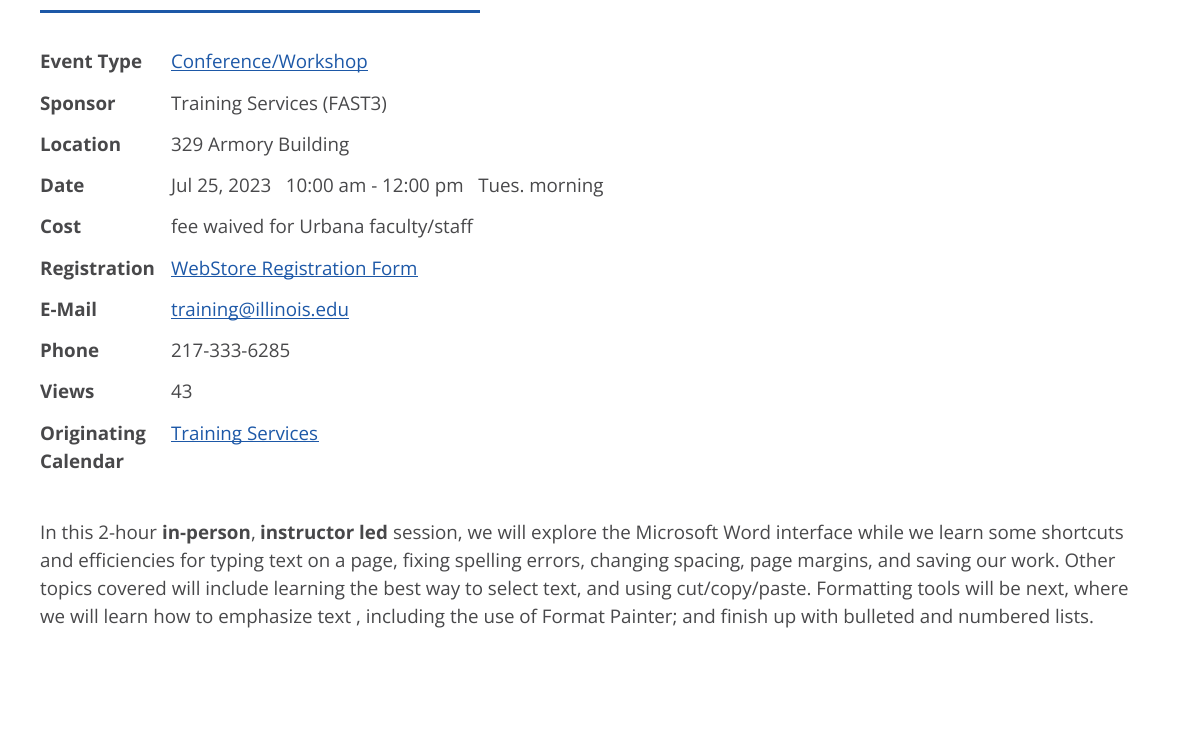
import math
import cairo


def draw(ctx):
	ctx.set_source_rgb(1, 1, 1)
	ctx.paint()
	ctx.set_source_rgb(0.114, 0.345, 0.655)
	ctx.rectangle(40, 10, 440, 3)
	ctx.fill()
	ctx.select_font_face('Open Sans', cairo.FONT_SLANT_NORMAL, cairo.FONT_WEIGHT_BOLD)
	ctx.set_font_size(18.75)
	ctx.set_source_rgb(0.282, 0.282, 0.29)
	ctx.move_to(40, 68)
	ctx.show_text('Event Type')
	ctx.set_source_rgb(0.114, 0.345, 0.655)
	ctx.rectangle(171, 70, 197, 1)
	ctx.fill()
	ctx.select_font_face('Open Sans')
	ctx.move_to(171, 68)
	ctx.show_text('Conference/Workshop')
	ctx.select_font_face('Open Sans', cairo.FONT_SLANT_NORMAL, cairo.FONT_WEIGHT_BOLD)
	ctx.set_source_rgb(0.282, 0.282, 0.29)
	ctx.move_to(40, 110)
	ctx.show_text('Sponsor')
	ctx.select_font_face('Open Sans')
	ctx.move_to(171, 110)
	ctx.show_text('Training Services (FAST3)')
	ctx.select_font_face('Open Sans', cairo.FONT_SLANT_NORMAL, cairo.FONT_WEIGHT_BOLD)
	ctx.move_to(40, 151)
	ctx.show_text('Location')
	ctx.select_font_face('Open Sans')
	ctx.move_to(171, 151)
	ctx.show_text('329 Armory Building')
	ctx.select_font_face('Open Sans', cairo.FONT_SLANT_NORMAL, cairo.FONT_WEIGHT_BOLD)
	ctx.move_to(40, 192)
	ctx.show_text('Date')
	ctx.select_font_face('Open Sans')
	ctx.move_to(171, 192)
	ctx.show_text('Jul 25, 2023   10:00 am - 12:00 pm   Tues. morning')
	ctx.select_font_face('Open Sans', cairo.FONT_SLANT_NORMAL, cairo.FONT_WEIGHT_BOLD)
	ctx.move_to(40, 233)
	ctx.show_text('Cost')
	ctx.select_font_face('Open Sans')
	ctx.move_to(171, 233)
	ctx.show_text('fee waived for Urbana faculty/staff')
	ctx.select_font_face('Open Sans', cairo.FONT_SLANT_NORMAL, cairo.FONT_WEIGHT_BOLD)
	ctx.move_to(40, 275)
	ctx.show_text('Registration')
	ctx.set_source_rgb(0.114, 0.345, 0.655)
	ctx.rectangle(171, 276, 247, 1)
	ctx.fill()
	ctx.select_font_face('Open Sans')
	ctx.move_to(171, 275)
	ctx.show_text('WebStore Registration Form')
	ctx.select_font_face('Open Sans', cairo.FONT_SLANT_NORMAL, cairo.FONT_WEIGHT_BOLD)
	ctx.set_source_rgb(0.282, 0.282, 0.29)
	ctx.move_to(40, 316)
	ctx.show_text('E-Mail')
	ctx.set_source_rgb(0.114, 0.345, 0.655)
	ctx.rectangle(171, 318, 178, 1)
	ctx.fill()
	ctx.select_font_face('Open Sans')
	ctx.move_to(171, 316)
	ctx.show_text('training@illinois.edu')
	ctx.select_font_face('Open Sans', cairo.FONT_SLANT_NORMAL, cairo.FONT_WEIGHT_BOLD)
	ctx.set_source_rgb(0.282, 0.282, 0.29)
	ctx.move_to(40, 357)
	ctx.show_text('Phone')
	ctx.select_font_face('Open Sans')
	ctx.move_to(171, 357)
	ctx.show_text('217-333-6285')
	ctx.select_font_face('Open Sans', cairo.FONT_SLANT_NORMAL, cairo.FONT_WEIGHT_BOLD)
	ctx.move_to(40, 398)
	ctx.show_text('Views')
	ctx.select_font_face('Open Sans')
	ctx.move_to(171, 398)
	ctx.show_text('43')
	ctx.select_font_face('Open Sans', cairo.FONT_SLANT_NORMAL, cairo.FONT_WEIGHT_BOLD)
	ctx.move_to(40, 440)
	ctx.show_text('Originating')
	ctx.move_to(40, 468)
	ctx.show_text('Calendar')
	ctx.set_source_rgb(0.114, 0.345, 0.655)
	ctx.rectangle(171, 441, 148, 1)
	ctx.fill()
	ctx.select_font_face('Open Sans')
	ctx.move_to(171, 440)
	ctx.show_text('Training Services')
	ctx.set_source_rgb(0.282, 0.282, 0.29)
	ctx.move_to(40, 539)
	ctx.show_text('In this 2-hour')
	ctx.select_font_face('Open Sans', cairo.FONT_SLANT_NORMAL, cairo.FONT_WEIGHT_BOLD)
	ctx.move_to(162, 539)
	ctx.show_text('in-person')
	ctx.select_font_face('Open Sans')
	ctx.move_to(251, 539)
	ctx.show_text(',')
	ctx.select_font_face('Open Sans', cairo.FONT_SLANT_NORMAL, cairo.FONT_WEIGHT_BOLD)
	ctx.move_to(260, 539)
	ctx.show_text('instructor led')
	ctx.select_font_face('Open Sans')
	for x, y, s in [
		(393, 539, 'session, we will explore the Microsoft Word interface while we learn some shortcuts'),
		(40, 567, 'and efficiencies for typing text on a page, fixing spelling errors, changing spacing, page margins, and saving our work. Other'),
		(40, 595, 'topics covered will include learning the best way to select text, and using cut/copy/paste. Formatting tools will be next, where'),
		(40, 623, 'we will learn how to emphasize text , including the use of Format Painter; and finish up with bulleted and numbered lists.'),
	]:
		ctx.move_to(x, y)
		ctx.show_text(s)


surface = cairo.ImageSurface(cairo.FORMAT_RGB24, 1187, 730)
ctx = cairo.Context(surface)
options = cairo.FontOptions()
options.set_hint_metrics(cairo.HINT_METRICS_OFF)
options.set_hint_style(cairo.HINT_STYLE_NONE)
ctx.set_font_options(options)
ctx.set_miter_limit(4)
draw(ctx)
surface.write_to_png('image.png')
